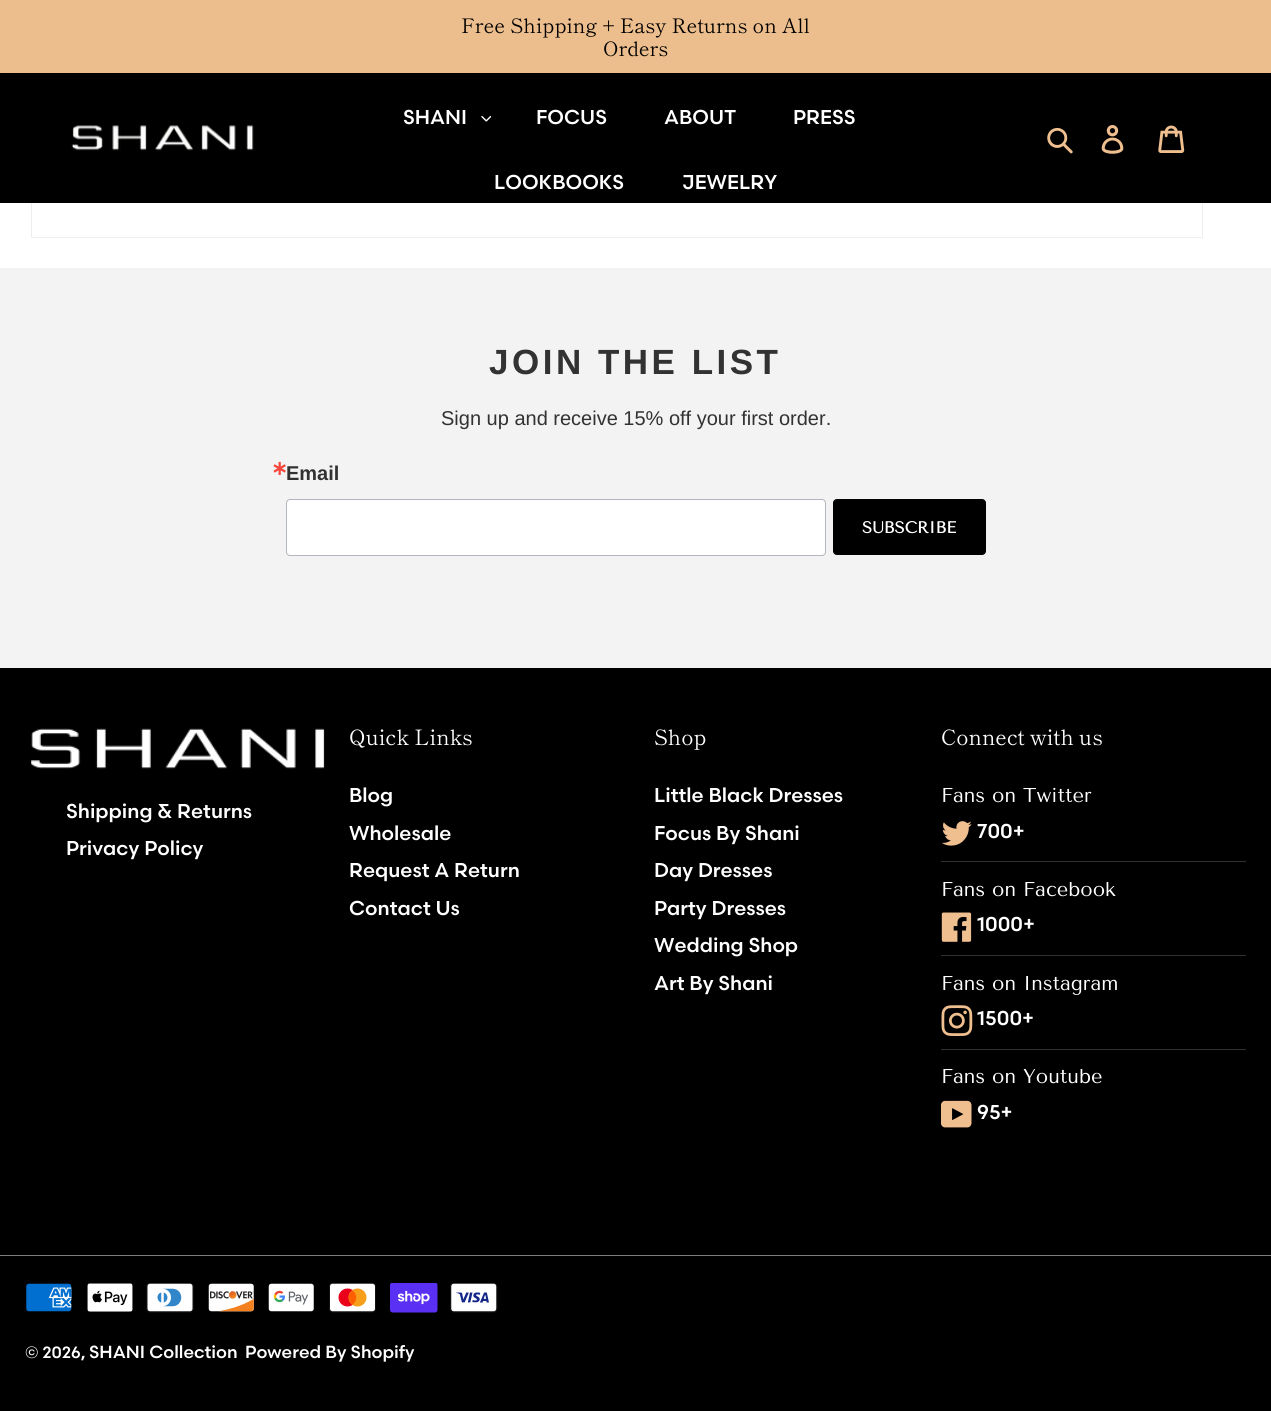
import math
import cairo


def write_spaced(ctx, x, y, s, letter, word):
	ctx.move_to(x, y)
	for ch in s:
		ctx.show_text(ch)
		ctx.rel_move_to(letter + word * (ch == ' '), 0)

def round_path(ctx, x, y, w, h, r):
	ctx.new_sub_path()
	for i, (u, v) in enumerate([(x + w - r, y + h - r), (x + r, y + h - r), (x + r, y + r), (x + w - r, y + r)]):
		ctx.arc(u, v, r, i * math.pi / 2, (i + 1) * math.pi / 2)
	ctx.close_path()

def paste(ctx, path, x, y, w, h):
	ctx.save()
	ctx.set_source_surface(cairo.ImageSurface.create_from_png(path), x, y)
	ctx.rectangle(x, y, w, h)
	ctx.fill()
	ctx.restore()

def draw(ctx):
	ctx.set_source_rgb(1, 1, 1)
	ctx.paint()
	ctx.set_source_rgb(0.929, 0.745, 0.553)
	ctx.rectangle(0, 0, 1271, 73)
	ctx.fill()
	ctx.select_font_face('Shippori Mincho')
	ctx.set_font_size(20)
	ctx.set_source_rgb(0, 0, 0)
	ctx.move_to(461, 33)
	ctx.show_text('Free Shipping + Easy Returns on All')
	ctx.move_to(603, 56)
	ctx.show_text('Orders')
	ctx.rectangle(31.5, 101.5, 1171, 136)
	ctx.set_source_rgb(0.933, 0.933, 0.933)
	ctx.set_line_width(1)
	ctx.stroke()
	ctx.set_source_rgb(0, 0, 0)
	ctx.rectangle(0, 73, 1271, 130)
	ctx.fill()
	paste(ctx, 'media/1.png', 71, 125, 183, 26)
	ctx.select_font_face('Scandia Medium')
	ctx.set_source_rgb(1, 1, 1)
	ctx.move_to(403, 124)
	ctx.show_text('SHANI')
	paste(ctx, 'media/2.png', 481, 115, 10, 7)
	for x, y, s in [
		(536, 124, 'FOCUS'),
		(664, 124, 'ABOUT'),
		(793, 124, 'PRESS'),
		(494, 189, 'LOOKBOOKS'),
		(682, 189, 'JEWELRY'),
	]:
		ctx.move_to(x, y)
		ctx.show_text(s)
	paste(ctx, 'media/3.png', 1047, 127, 26, 27)
	paste(ctx, 'media/4.png', 1101, 125, 23, 29)
	paste(ctx, 'media/5.png', 1158, 125, 27, 28)
	ctx.set_source_rgb(0.953, 0.953, 0.953)
	ctx.rectangle(0, 268, 1271, 400)
	ctx.fill()
	ctx.select_font_face('Liberation Sans', cairo.FONT_SLANT_NORMAL, cairo.FONT_WEIGHT_BOLD)
	ctx.set_font_size(35)
	ctx.set_source_rgb(0.196, 0.196, 0.196)
	write_spaced(ctx, 489, 374, 'JOIN THE LIST', 3.5, 0)
	ctx.select_font_face('Liberation Sans')
	ctx.set_font_size(20)
	ctx.move_to(441, 425)
	ctx.show_text('Sign up and receive 15% off your first order.')
	ctx.select_font_face('DejaVu Sans', cairo.FONT_SLANT_NORMAL, cairo.FONT_WEIGHT_BOLD)
	ctx.set_source_rgb(0.961, 0.275, 0.231)
	ctx.move_to(271, 475)
	ctx.show_text('∗')
	ctx.select_font_face('Liberation Sans', cairo.FONT_SLANT_NORMAL, cairo.FONT_WEIGHT_BOLD)
	ctx.set_source_rgb(0.196, 0.196, 0.196)
	ctx.move_to(286, 480)
	ctx.show_text('Email')
	ctx.set_source_rgb(1, 1, 1)
	round_path(ctx, 286.5, 499.5, 539, 56, 3.5)
	ctx.fill_preserve()
	ctx.set_source_rgb(0.69, 0.714, 0.733)
	ctx.stroke()
	ctx.set_source_rgb(0, 0, 0)
	round_path(ctx, 833.5, 499.5, 152, 55, 3.5)
	ctx.fill_preserve()
	ctx.stroke()
	ctx.select_font_face('Tenor Sans', cairo.FONT_SLANT_NORMAL, cairo.FONT_WEIGHT_BOLD)
	ctx.set_font_size(16.25)
	ctx.set_source_rgb(1, 1, 1)
	ctx.move_to(862, 533)
	ctx.show_text('SUBSCRIBE')
	ctx.set_source_rgb(0, 0, 0)
	ctx.rectangle(0, 668, 1271, 743)
	ctx.fill()
	paste(ctx, 'media/6.png', 31, 728, 294, 41)
	ctx.select_font_face('Scandia Medium')
	ctx.set_font_size(20)
	ctx.set_source_rgb(1, 1, 1)
	ctx.move_to(66, 818)
	ctx.show_text('Shipping & Returns')
	ctx.move_to(66, 855)
	ctx.show_text('Privacy Policy')
	ctx.select_font_face('Shippori Mincho')
	ctx.set_font_size(21.25)
	ctx.move_to(349, 745)
	ctx.show_text('Quick Links')
	ctx.select_font_face('Scandia Medium')
	ctx.set_font_size(20)
	for x, y, s in [
		(349, 802, 'Blog'),
		(349, 840, 'Wholesale'),
		(349, 877, 'Request A Return'),
		(349, 915, 'Contact Us'),
	]:
		ctx.move_to(x, y)
		ctx.show_text(s)
	ctx.select_font_face('Shippori Mincho')
	ctx.set_font_size(21.25)
	ctx.move_to(654, 745)
	ctx.show_text('Shop')
	ctx.select_font_face('Scandia Medium')
	ctx.set_font_size(20)
	for x, y, s in [
		(654, 802, 'Little Black Dresses'),
		(654, 840, 'Focus By Shani'),
		(654, 877, 'Day Dresses'),
		(654, 915, 'Party Dresses'),
		(654, 952, 'Wedding Shop'),
		(654, 990, 'Art By Shani'),
	]:
		ctx.move_to(x, y)
		ctx.show_text(s)
	ctx.select_font_face('Shippori Mincho')
	ctx.set_font_size(21.25)
	ctx.move_to(941, 745)
	ctx.show_text('Connect with us')
	ctx.set_source_rgb(0.192, 0.192, 0.192)
	ctx.rectangle(941, 861, 305, 1)
	ctx.fill()
	ctx.select_font_face('Tenor Sans')
	ctx.set_font_size(20)
	ctx.set_source_rgb(1, 1, 1)
	ctx.move_to(941, 802)
	ctx.show_text('Fans on Twitter')
	paste(ctx, 'media/7.png', 942, 821, 30, 25)
	ctx.select_font_face('Scandia Medium')
	ctx.move_to(977, 838)
	ctx.show_text('700+')
	ctx.set_source_rgb(0.192, 0.192, 0.192)
	ctx.rectangle(941, 955, 305, 1)
	ctx.fill()
	ctx.select_font_face('Tenor Sans')
	ctx.set_source_rgb(1, 1, 1)
	ctx.move_to(941, 896)
	ctx.show_text('Fans on Facebook')
	paste(ctx, 'media/8.png', 941, 912, 31, 30)
	ctx.select_font_face('Scandia Medium')
	ctx.move_to(977, 931)
	ctx.show_text('1000+')
	ctx.set_source_rgb(0.192, 0.192, 0.192)
	ctx.rectangle(941, 1049, 305, 1)
	ctx.fill()
	ctx.select_font_face('Tenor Sans')
	ctx.set_source_rgb(1, 1, 1)
	ctx.move_to(941, 990)
	ctx.show_text('Fans on Instagram')
	paste(ctx, 'media/9.png', 941, 1005, 32, 31)
	ctx.select_font_face('Scandia Medium')
	ctx.move_to(977, 1025)
	ctx.show_text('1500+')
	ctx.select_font_face('Tenor Sans')
	ctx.move_to(941, 1083)
	ctx.show_text('Fans on Youtube')
	paste(ctx, 'media/10.png', 941, 1100, 31, 28)
	ctx.select_font_face('Scandia Medium')
	ctx.move_to(977, 1119)
	ctx.show_text('95+')
	ctx.set_source_rgb(0.494, 0.494, 0.494)
	ctx.rectangle(0, 1255, 1271, 1)
	ctx.fill()
	paste(ctx, 'media/11.png', 26, 1283, 46, 29)
	paste(ctx, 'media/12.png', 87, 1283, 46, 29)
	paste(ctx, 'media/13.png', 146, 1283, 48, 30)
	paste(ctx, 'media/14.png', 208, 1283, 46, 29)
	paste(ctx, 'media/15.png', 268, 1283, 46, 29)
	paste(ctx, 'media/16.png', 329, 1283, 47, 30)
	paste(ctx, 'media/17.png', 390, 1283, 48, 30)
	paste(ctx, 'media/18.png', 450, 1283, 48, 30)
	ctx.set_font_size(16.25)
	ctx.set_source_rgb(1, 1, 1)
	ctx.move_to(25, 1358)
	ctx.show_text('© 2026,')
	ctx.set_font_size(17.5)
	ctx.move_to(89, 1358)
	ctx.show_text('SHANI Collection')
	ctx.move_to(245, 1358)
	ctx.show_text('Powered By Shopify')


surface = cairo.ImageSurface(cairo.FORMAT_RGB24, 1271, 1411)
ctx = cairo.Context(surface)
options = cairo.FontOptions()
options.set_hint_metrics(cairo.HINT_METRICS_OFF)
options.set_hint_style(cairo.HINT_STYLE_NONE)
ctx.set_font_options(options)
ctx.set_miter_limit(4)
draw(ctx)
surface.write_to_png('image.png')
